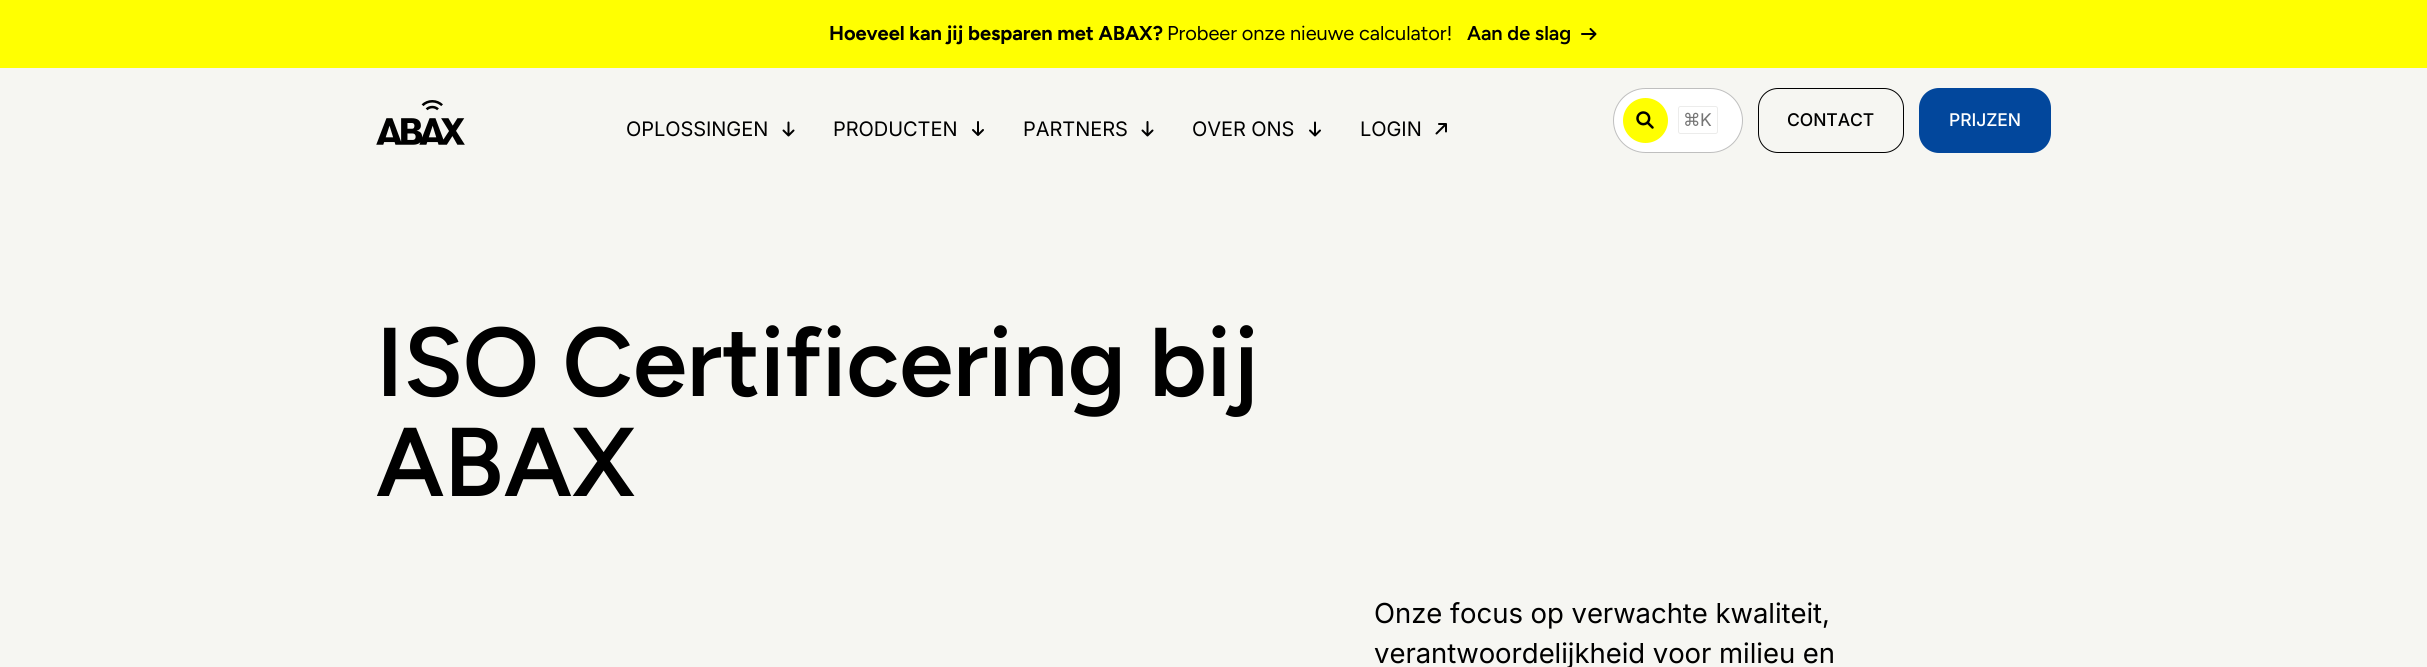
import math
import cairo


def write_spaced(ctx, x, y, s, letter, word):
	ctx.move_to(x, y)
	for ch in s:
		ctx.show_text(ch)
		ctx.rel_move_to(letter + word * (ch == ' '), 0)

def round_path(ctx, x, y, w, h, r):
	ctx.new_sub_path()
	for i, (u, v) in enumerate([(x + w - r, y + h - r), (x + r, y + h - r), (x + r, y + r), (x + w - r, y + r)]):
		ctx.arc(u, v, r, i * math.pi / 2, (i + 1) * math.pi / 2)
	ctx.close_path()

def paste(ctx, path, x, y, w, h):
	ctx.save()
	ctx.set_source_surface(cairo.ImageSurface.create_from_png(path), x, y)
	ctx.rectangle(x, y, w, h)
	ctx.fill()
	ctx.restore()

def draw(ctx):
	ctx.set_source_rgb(1, 1, 0.004)
	ctx.paint()
	ctx.select_font_face('Figtree', cairo.FONT_SLANT_NORMAL, cairo.FONT_WEIGHT_BOLD)
	ctx.set_font_size(20)
	ctx.set_source_rgb(0, 0, 0)
	write_spaced(ctx, 829, 40, 'Hoeveel kan jij besparen met ABAX?', -0.05, 0)
	ctx.select_font_face('Figtree')
	write_spaced(ctx, 1167, 40, 'Probeer onze nieuwe calculator!', -0.05, 0)
	ctx.select_font_face('Figtree SemiBold')
	write_spaced(ctx, 1467, 40, 'Aan de slag', -0.05, 0)
	ctx.new_path()
	ctx.move_to(1582, 34)
	ctx.line_to(1595.5, 34)
	ctx.move_to(1595.5, 34)
	ctx.line_to(1590.5, 29)
	ctx.move_to(1595.5, 34)
	ctx.line_to(1590.5, 39)
	ctx.set_line_cap(cairo.LINE_CAP_ROUND)
	ctx.set_line_join(cairo.LINE_JOIN_ROUND)
	ctx.stroke()
	ctx.set_source_rgb(0.961, 0.961, 0.949)
	ctx.rectangle(0, 68, 2427, 599)
	ctx.fill()
	paste(ctx, 'media/1.png', 376, 100, 89, 45)
	ctx.set_source_rgb(1, 1, 1)
	round_path(ctx, 1613.5, 88.5, 129, 64, 32)
	ctx.fill_preserve()
	ctx.set_source_rgb(0.749, 0.749, 0.749)
	ctx.set_line_width(1)
	ctx.set_line_cap(cairo.LINE_CAP_BUTT)
	ctx.set_line_join(cairo.LINE_JOIN_MITER)
	ctx.stroke()
	ctx.set_source_rgb(1, 1, 0.004)
	ctx.arc(1645.5, 120.5, 22.5, 0, 2 * math.pi)
	ctx.fill()
	paste(ctx, 'media/2.png', 1636, 111, 18, 18)
	round_path(ctx, 1678.5, 106.5, 39, 27, 2)
	ctx.set_source_rgb(0.925, 0.925, 0.918)
	ctx.stroke()
	ctx.select_font_face('DejaVu Sans')
	ctx.set_font_size(17.5)
	ctx.set_source_rgb(0.459, 0.459, 0.459)
	write_spaced(ctx, 1683, 126, '⌘', -0.05, 0)
	ctx.select_font_face('Inter')
	write_spaced(ctx, 1700, 126, 'K', -0.05, 0)
	round_path(ctx, 1758.5, 88.5, 145, 64, 19.5)
	ctx.set_source_rgb(0, 0, 0)
	ctx.stroke()
	ctx.select_font_face('Inter Medium')
	write_spaced(ctx, 1787, 126, 'CONTACT', -0.05, 0)
	ctx.set_source_rgb(0.008, 0.278, 0.612)
	round_path(ctx, 1919, 88, 132, 65, 20)
	ctx.fill()
	ctx.set_source_rgb(1, 1, 1)
	write_spaced(ctx, 1949, 126, 'PRIJZEN', -0.05, 0)
	ctx.select_font_face('Inter')
	ctx.set_font_size(20)
	ctx.set_source_rgb(0, 0, 0)
	write_spaced(ctx, 626, 136, 'OPLOSSINGEN', -0.05, 0)
	ctx.new_path()
	ctx.move_to(788.5, 122.5)
	ctx.line_to(788.5, 135.5)
	ctx.move_to(788.5, 135.5)
	ctx.line_to(793.5, 130.5)
	ctx.move_to(788.5, 135.5)
	ctx.line_to(783.5, 130.5)
	ctx.set_line_width(2)
	ctx.set_line_cap(cairo.LINE_CAP_ROUND)
	ctx.set_line_join(cairo.LINE_JOIN_ROUND)
	ctx.stroke()
	write_spaced(ctx, 833, 136, 'PRODUCTEN', -0.05, 0)
	ctx.new_path()
	ctx.move_to(978, 122)
	ctx.line_to(978, 135)
	ctx.move_to(978, 135)
	ctx.line_to(983, 130)
	ctx.move_to(978, 135)
	ctx.line_to(973, 130)
	ctx.stroke()
	write_spaced(ctx, 1023, 136, 'PARTNERS', -0.05, 0)
	ctx.new_path()
	ctx.move_to(1147.5, 122)
	ctx.line_to(1147.5, 135.5)
	ctx.move_to(1147.5, 135.5)
	ctx.line_to(1152.5, 130.5)
	ctx.move_to(1147.5, 135.5)
	ctx.line_to(1142.5, 130.5)
	ctx.stroke()
	write_spaced(ctx, 1192, 136, 'OVER ONS', -0.05, 0)
	ctx.new_path()
	ctx.move_to(1315, 122.5)
	ctx.line_to(1315, 135.5)
	ctx.move_to(1315, 135.5)
	ctx.line_to(1320, 130.5)
	ctx.move_to(1315, 135.5)
	ctx.line_to(1310, 130.5)
	ctx.stroke()
	write_spaced(ctx, 1360, 136, 'LOGIN', -0.05, 0)
	ctx.new_path()
	ctx.move_to(1436.5, 133.5)
	ctx.line_to(1446, 124)
	ctx.move_to(1446, 124)
	ctx.line_to(1439, 124)
	ctx.move_to(1446, 124)
	ctx.line_to(1446, 131.5)
	ctx.stroke()
	ctx.select_font_face('Figtree SemiBold')
	ctx.set_font_size(97.5)
	write_spaced(ctx, 376, 396, 'ISO Certificering bij', -0.05, 0)
	write_spaced(ctx, 376, 496, 'ABAX', -0.05, 0)
	ctx.select_font_face('Inter')
	ctx.set_font_size(27.5)
	write_spaced(ctx, 1374, 623, 'Onze focus op verwachte kwaliteit,', -0.05, 0)
	write_spaced(ctx, 1374, 663, 'verantwoordelijkheid voor milieu en', -0.05, 0)


surface = cairo.ImageSurface(cairo.FORMAT_RGB24, 2427, 667)
ctx = cairo.Context(surface)
options = cairo.FontOptions()
options.set_hint_metrics(cairo.HINT_METRICS_OFF)
options.set_hint_style(cairo.HINT_STYLE_NONE)
ctx.set_font_options(options)
ctx.set_miter_limit(4)
draw(ctx)
surface.write_to_png('image.png')
